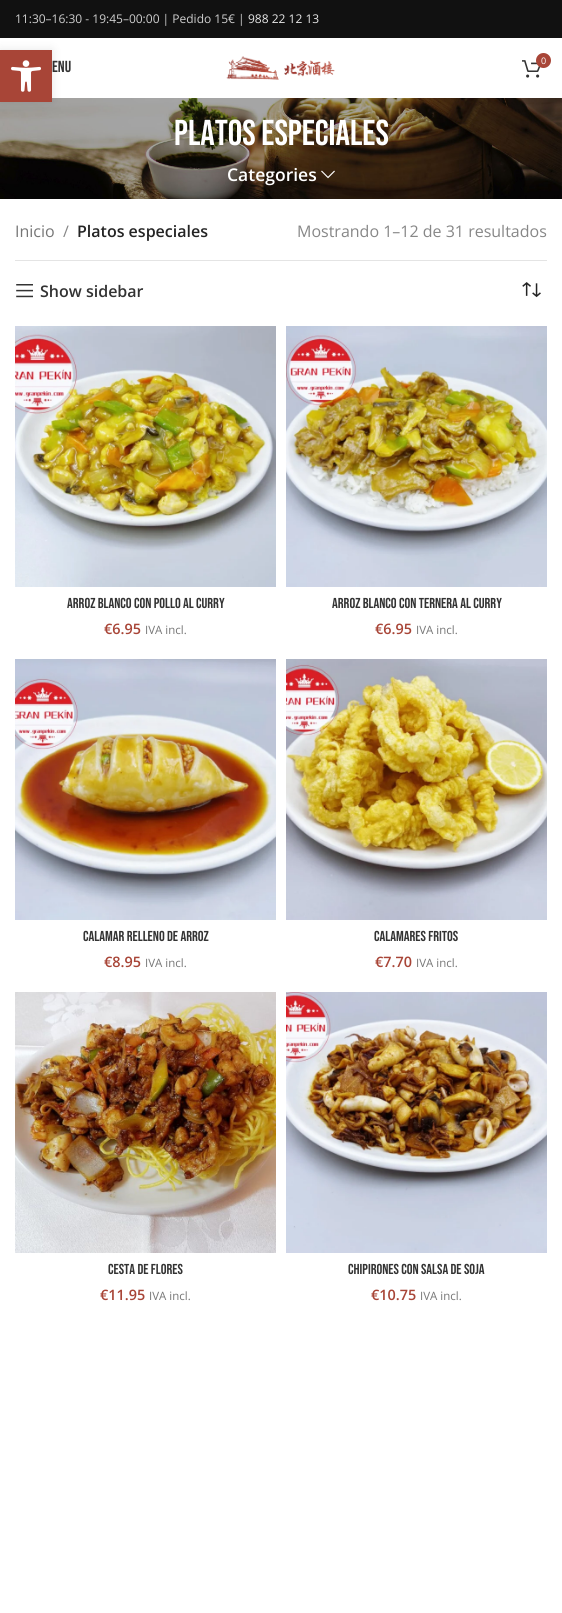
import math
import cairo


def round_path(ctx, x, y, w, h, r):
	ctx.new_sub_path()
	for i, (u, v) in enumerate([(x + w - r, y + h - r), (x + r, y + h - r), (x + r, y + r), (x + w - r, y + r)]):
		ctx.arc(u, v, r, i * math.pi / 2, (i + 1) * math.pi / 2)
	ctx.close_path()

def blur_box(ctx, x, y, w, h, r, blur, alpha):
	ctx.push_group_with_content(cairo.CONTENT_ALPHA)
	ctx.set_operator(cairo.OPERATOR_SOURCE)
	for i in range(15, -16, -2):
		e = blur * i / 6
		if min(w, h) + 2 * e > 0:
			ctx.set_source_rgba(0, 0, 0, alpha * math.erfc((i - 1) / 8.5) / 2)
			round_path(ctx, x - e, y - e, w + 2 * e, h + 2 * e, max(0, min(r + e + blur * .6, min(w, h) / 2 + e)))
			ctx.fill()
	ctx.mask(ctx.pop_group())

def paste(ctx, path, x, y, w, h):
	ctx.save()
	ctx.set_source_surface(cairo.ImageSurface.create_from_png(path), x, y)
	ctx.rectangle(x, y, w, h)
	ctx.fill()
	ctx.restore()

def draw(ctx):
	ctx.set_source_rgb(1, 1, 1)
	ctx.paint()
	ctx.set_source_rgb(0.067, 0.067, 0.067)
	ctx.rectangle(0, 0, 562, 38)
	ctx.fill()
	ctx.select_font_face('Open Sans')
	ctx.set_font_size(12)
	ctx.set_source_rgb(0.812, 0.812, 0.812)
	ctx.move_to(15, 23)
	ctx.show_text('11:30–16:30 - 19:45–00:00 | Pedido 15€ |')
	ctx.set_source_rgb(0.906, 0.906, 0.906)
	ctx.move_to(248, 23)
	ctx.show_text('988 22 12 13')
	ctx.select_font_face('Bebas Neue')
	ctx.set_font_size(16)
	ctx.set_source_rgb(0.2, 0.2, 0.2)
	ctx.move_to(52, 72)
	ctx.show_text('ENU')
	paste(ctx, 'media/1.png', 226, 56, 109, 24)
	paste(ctx, 'media/2.png', 522, 60, 19, 18)
	ctx.set_source_rgb(0.659, 0.271, 0.216)
	ctx.arc(543.5, 60.5, 7.5, 0, 2 * math.pi)
	ctx.fill()
	ctx.select_font_face('Open Sans')
	ctx.set_font_size(9)
	ctx.set_source_rgb(1, 1, 1)
	ctx.move_to(541, 64)
	ctx.show_text('0')
	paste(ctx, 'media/3.png', 0, 98, 562, 101)
	ctx.select_font_face('Bebas Neue')
	ctx.set_font_size(36)
	ctx.move_to(174, 145)
	ctx.show_text('Platos especiales')
	ctx.select_font_face('Open Sans SemiBold')
	ctx.set_font_size(17.5)
	ctx.move_to(227, 181)
	ctx.show_text('Categories')
	paste(ctx, 'media/4.png', 321, 170, 14, 9)
	ctx.set_source_rgb(0.894, 0.894, 0.894)
	ctx.rectangle(15, 260, 532, 1)
	ctx.fill()
	ctx.select_font_face('Open Sans')
	ctx.set_font_size(16)
	ctx.set_source_rgb(0.463, 0.463, 0.463)
	ctx.move_to(15, 237)
	ctx.show_text('Inicio')
	ctx.set_source_rgb(0.529, 0.529, 0.529)
	ctx.move_to(63, 237)
	ctx.show_text('/')
	ctx.select_font_face('Open Sans SemiBold')
	ctx.set_source_rgb(0.141, 0.141, 0.141)
	ctx.move_to(77, 237)
	ctx.show_text('Platos especiales')
	ctx.select_font_face('Open Sans')
	ctx.set_source_rgb(0.529, 0.529, 0.529)
	ctx.move_to(297, 237)
	ctx.show_text('Mostrando 1–12 de 31 resultados')
	paste(ctx, 'media/5.png', 16, 284, 17, 14)
	ctx.select_font_face('Open Sans SemiBold')
	ctx.set_source_rgb(0.2, 0.2, 0.2)
	ctx.move_to(40, 297)
	ctx.show_text('Show sidebar')
	paste(ctx, 'media/6.png', 522, 282, 19, 16)
	paste(ctx, 'media/7.png', 15, 326, 261, 261)
	ctx.select_font_face('Bebas Neue')
	ctx.set_font_size(14.4)
	ctx.move_to(67, 608)
	ctx.show_text('Arroz blanco con pollo al curry')
	ctx.select_font_face('Open Sans SemiBold')
	ctx.set_source_rgb(0.659, 0.271, 0.216)
	ctx.move_to(104, 634)
	ctx.show_text('€6.95')
	ctx.select_font_face('Open Sans')
	ctx.set_font_size(11.5)
	ctx.set_source_rgb(0.463, 0.463, 0.463)
	ctx.move_to(145, 634)
	ctx.show_text('IVA incl.')
	paste(ctx, 'media/8.png', 286, 326, 261, 261)
	ctx.select_font_face('Bebas Neue')
	ctx.set_font_size(14.4)
	ctx.set_source_rgb(0.2, 0.2, 0.2)
	ctx.move_to(332, 608)
	ctx.show_text('Arroz blanco con ternera al curry')
	ctx.select_font_face('Open Sans SemiBold')
	ctx.set_source_rgb(0.659, 0.271, 0.216)
	ctx.move_to(375, 634)
	ctx.show_text('€6.95')
	ctx.select_font_face('Open Sans')
	ctx.set_font_size(11.5)
	ctx.set_source_rgb(0.463, 0.463, 0.463)
	ctx.move_to(416, 634)
	ctx.show_text('IVA incl.')
	paste(ctx, 'media/9.png', 15, 659, 261, 261)
	ctx.select_font_face('Bebas Neue')
	ctx.set_font_size(14.4)
	ctx.set_source_rgb(0.2, 0.2, 0.2)
	ctx.move_to(83, 941)
	ctx.show_text('Calamar relleno de arroz')
	ctx.select_font_face('Open Sans SemiBold')
	ctx.set_source_rgb(0.659, 0.271, 0.216)
	ctx.move_to(104, 967)
	ctx.show_text('€8.95')
	ctx.select_font_face('Open Sans')
	ctx.set_font_size(11.5)
	ctx.set_source_rgb(0.463, 0.463, 0.463)
	ctx.move_to(145, 967)
	ctx.show_text('IVA incl.')
	paste(ctx, 'media/10.png', 286, 659, 261, 261)
	ctx.select_font_face('Bebas Neue')
	ctx.set_font_size(14.4)
	ctx.set_source_rgb(0.2, 0.2, 0.2)
	ctx.move_to(374, 941)
	ctx.show_text('Calamares fritos')
	ctx.select_font_face('Open Sans SemiBold')
	ctx.set_source_rgb(0.659, 0.271, 0.216)
	ctx.move_to(375, 967)
	ctx.show_text('€7.70')
	ctx.select_font_face('Open Sans')
	ctx.set_font_size(11.5)
	ctx.set_source_rgb(0.463, 0.463, 0.463)
	ctx.move_to(416, 967)
	ctx.show_text('IVA incl.')
	paste(ctx, 'media/11.png', 15, 992, 261, 261)
	ctx.select_font_face('Bebas Neue')
	ctx.set_font_size(14.4)
	ctx.set_source_rgb(0.2, 0.2, 0.2)
	ctx.move_to(108, 1274)
	ctx.show_text('Cesta de Flores')
	ctx.select_font_face('Open Sans SemiBold')
	ctx.set_source_rgb(0.659, 0.271, 0.216)
	ctx.move_to(100, 1300)
	ctx.show_text('€11.95')
	ctx.select_font_face('Open Sans')
	ctx.set_font_size(11.5)
	ctx.set_source_rgb(0.463, 0.463, 0.463)
	ctx.move_to(149, 1300)
	ctx.show_text('IVA incl.')
	paste(ctx, 'media/12.png', 286, 992, 261, 261)
	ctx.select_font_face('Bebas Neue')
	ctx.set_font_size(14.4)
	ctx.set_source_rgb(0.2, 0.2, 0.2)
	ctx.move_to(348, 1274)
	ctx.show_text('Chipirones con salsa de soja')
	ctx.select_font_face('Open Sans SemiBold')
	ctx.set_source_rgb(0.659, 0.271, 0.216)
	ctx.move_to(371, 1300)
	ctx.show_text('€10.75')
	ctx.select_font_face('Open Sans')
	ctx.set_font_size(11.5)
	ctx.set_source_rgb(0.463, 0.463, 0.463)
	ctx.move_to(420, 1300)
	ctx.show_text('IVA incl.')
	ctx.set_source_rgb(0, 0, 0)
	blur_box(ctx, 0, 50, 52, 52, 0, 5, 0.1)
	ctx.set_source_rgb(0.659, 0.271, 0.216)
	ctx.rectangle(0, 50, 52, 52)
	ctx.fill()
	paste(ctx, 'media/13.png', 11, 60, 30, 32)


surface = cairo.ImageSurface(cairo.FORMAT_RGB24, 562, 1613)
ctx = cairo.Context(surface)
options = cairo.FontOptions()
options.set_hint_metrics(cairo.HINT_METRICS_OFF)
options.set_hint_style(cairo.HINT_STYLE_NONE)
ctx.set_font_options(options)
ctx.set_miter_limit(4)
draw(ctx)
surface.write_to_png('image.png')
